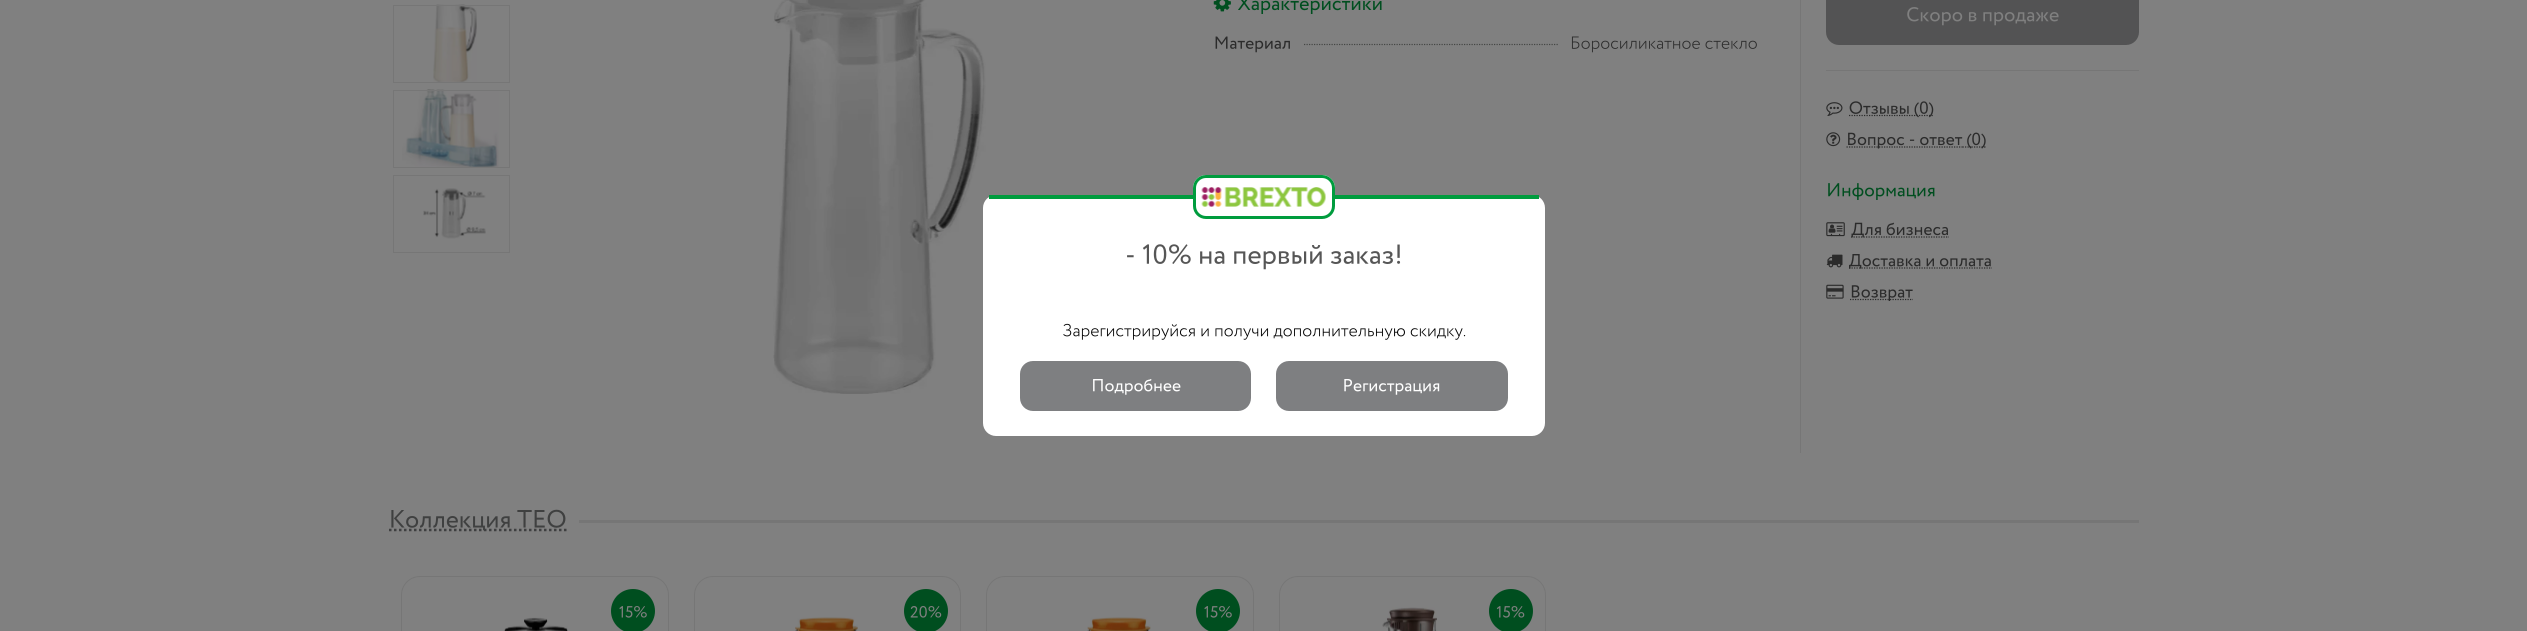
import math
import cairo


def round_path(ctx, x, y, w, h, r):
	ctx.new_sub_path()
	for i, (u, v) in enumerate([(x + w - r, y + h - r), (x + r, y + h - r), (x + r, y + r), (x + w - r, y + r)]):
		ctx.arc(u, v, r, i * math.pi / 2, (i + 1) * math.pi / 2)
	ctx.close_path()

def paste(ctx, path, x, y, w, h):
	ctx.save()
	ctx.set_source_surface(cairo.ImageSurface.create_from_png(path), x, y)
	ctx.rectangle(x, y, w, h)
	ctx.fill()
	ctx.restore()

def draw(ctx):
	ctx.set_source_rgb(0.502, 0.502, 0.502)
	ctx.paint()
	paste(ctx, 'media/1.png', 433, 4, 44, 78)
	ctx.rectangle(393.5, 5.5, 116, 77)
	ctx.set_source_rgb(0.463, 0.463, 0.463)
	ctx.set_line_width(1)
	ctx.stroke()
	paste(ctx, 'media/2.png', 402, 89, 97, 78)
	ctx.rectangle(393.5, 90.5, 116, 77)
	ctx.stroke()
	paste(ctx, 'media/3.png', 423, 188, 63, 51)
	ctx.rectangle(393.5, 175.5, 116, 77)
	ctx.stroke()
	paste(ctx, 'media/4.png', 773, 0, 213, 394)
	paste(ctx, 'media/5.png', 1213, 0, 18, 12)
	paste(ctx, 'media/6.png', 1238, 0, 144, 14)
	ctx.new_path()
	ctx.move_to(1214, 44.5)
	ctx.line_to(1757.5, 44.5)
	ctx.set_source_rgb(0.271, 0.278, 0.271)
	ctx.set_line_width(1.2)
	ctx.set_dash([1.25, 1.25])
	ctx.stroke()
	ctx.set_source_rgb(0.502, 0.502, 0.502)
	ctx.rectangle(1214, 43, 89, 3)
	ctx.fill()
	paste(ctx, 'media/7.png', 1215, 36, 75, 17)
	ctx.rectangle(1559, 43, 199, 3)
	ctx.fill()
	paste(ctx, 'media/8.png', 1571, 36, 186, 17)
	ctx.set_source_rgb(0.463, 0.463, 0.463)
	ctx.rectangle(1800, 0, 1, 453)
	ctx.fill()
	ctx.rectangle(1826, 70, 313, 1)
	ctx.fill()
	ctx.set_source_rgb(0.325, 0.325, 0.329)
	round_path(ctx, 1826, -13, 313, 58, 13)
	ctx.fill()
	paste(ctx, 'media/9.png', 1907, 7, 152, 19)
	paste(ctx, 'media/10.png', 1826, 102, 17, 14)
	ctx.new_path()
	ctx.move_to(1849, 115.5)
	ctx.line_to(1934, 115.5)
	ctx.set_source_rgb(0.169, 0.169, 0.169)
	ctx.stroke()
	paste(ctx, 'media/11.png', 1849, 101, 85, 17)
	paste(ctx, 'media/12.png', 1826, 132, 15, 15)
	ctx.new_path()
	ctx.move_to(1846.5, 147)
	ctx.line_to(1962.5, 147)
	ctx.stroke()
	paste(ctx, 'media/13.png', 1848, 132, 115, 17)
	ctx.new_path()
	ctx.move_to(1962.5, 147)
	ctx.line_to(1971.5, 147)
	ctx.stroke()
	paste(ctx, 'media/14.png', 1967, 133, 5, 16)
	paste(ctx, 'media/15.png', 1972, 132, 9, 14)
	ctx.new_path()
	ctx.move_to(1981.5, 147)
	ctx.line_to(1983, 147)
	ctx.move_to(1984, 147)
	ctx.line_to(1985.5, 147)
	ctx.move_to(1986.5, 147)
	ctx.line_to(1986.5, 147)
	ctx.set_dash([])
	ctx.stroke()
	paste(ctx, 'media/16.png', 1981, 133, 5, 16)
	ctx.new_path()
	ctx.move_to(1971.5, 147)
	ctx.line_to(1981.5, 147)
	ctx.move_to(1971.5, 147)
	ctx.line_to(1981.5, 147)
	ctx.set_dash([1.25, 1.25])
	ctx.stroke()
	paste(ctx, 'media/17.png', 1828, 183, 107, 17)
	paste(ctx, 'media/18.png', 1826, 222, 19, 15)
	ctx.new_path()
	ctx.move_to(1851, 237)
	ctx.line_to(1949, 237)
	ctx.stroke()
	paste(ctx, 'media/19.png', 1851, 222, 97, 16)
	paste(ctx, 'media/20.png', 1826, 254, 17, 14)
	ctx.new_path()
	ctx.move_to(1849, 268)
	ctx.line_to(1992, 268)
	ctx.stroke()
	paste(ctx, 'media/21.png', 1849, 254, 142, 15)
	paste(ctx, 'media/22.png', 1826, 284, 18, 15)
	ctx.new_path()
	ctx.move_to(1850, 299.5)
	ctx.line_to(1913, 299.5)
	ctx.stroke()
	paste(ctx, 'media/23.png', 1851, 285, 62, 16)
	ctx.new_path()
	ctx.move_to(389, 530)
	ctx.line_to(566.5, 530)
	ctx.set_source_rgb(0.247, 0.251, 0.255)
	ctx.set_line_width(2.5)
	ctx.set_dash([2.5, 2.5])
	ctx.stroke()
	paste(ctx, 'media/24.png', 391, 509, 175, 22)
	ctx.set_source_rgb(0.463, 0.463, 0.463)
	ctx.rectangle(579, 520, 1560, 3)
	ctx.fill()
	round_path(ctx, 401.5, 576.5, 267, 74, 18.5)
	ctx.set_line_width(1)
	ctx.set_dash([])
	ctx.stroke()
	paste(ctx, 'media/25.png', 504, 617, 64, 14)
	ctx.set_source_rgb(0, 0.306, 0.122)
	ctx.arc(633, 611, 22, 0, 2 * math.pi)
	ctx.fill()
	paste(ctx, 'media/26.png', 619, 606, 28, 12)
	round_path(ctx, 694.5, 576.5, 266, 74, 18.5)
	ctx.set_source_rgb(0.463, 0.463, 0.463)
	ctx.stroke()
	paste(ctx, 'media/27.png', 795, 617, 63, 14)
	ctx.set_source_rgb(0, 0.306, 0.122)
	ctx.arc(926, 611, 22, 0, 2 * math.pi)
	ctx.fill()
	paste(ctx, 'media/28.png', 910, 606, 32, 12)
	round_path(ctx, 986.5, 576.5, 267, 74, 18.5)
	ctx.set_source_rgb(0.463, 0.463, 0.463)
	ctx.stroke()
	paste(ctx, 'media/29.png', 1087, 617, 64, 14)
	ctx.set_source_rgb(0, 0.306, 0.122)
	ctx.arc(1218, 611, 22, 0, 2 * math.pi)
	ctx.fill()
	paste(ctx, 'media/26.png', 1204, 606, 28, 12)
	round_path(ctx, 1279.5, 576.5, 266, 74, 18.5)
	ctx.set_source_rgb(0.463, 0.463, 0.463)
	ctx.stroke()
	paste(ctx, 'media/30.png', 1382, 607, 55, 24)
	ctx.set_source_rgb(0, 0.306, 0.122)
	ctx.arc(1511, 611, 22, 0, 2 * math.pi)
	ctx.fill()
	paste(ctx, 'media/31.png', 1496, 606, 29, 12)
	ctx.set_source_rgb(1, 1, 1)
	round_path(ctx, 983, 195, 562, 241, 13)
	ctx.fill()
	ctx.set_source_rgb(0, 0.612, 0.243)
	ctx.rectangle(989, 195, 550, 4)
	ctx.fill()
	ctx.set_source_rgb(1, 1, 1)
	round_path(ctx, 1193, 175, 142, 44, 13)
	ctx.fill()
	paste(ctx, 'media/32.png', 1201, 187, 125, 20)
	round_path(ctx, 1194.5, 176.5, 139, 41, 11.5)
	ctx.set_source_rgb(0, 0.612, 0.243)
	ctx.set_line_width(3)
	ctx.stroke()
	paste(ctx, 'media/33.png', 1127, 244, 274, 26)
	paste(ctx, 'media/34.png', 1063, 323, 403, 17)
	ctx.set_source_rgb(0.494, 0.498, 0.506)
	round_path(ctx, 1020, 361, 231, 50, 13)
	ctx.fill()
	paste(ctx, 'media/35.png', 1093, 379, 88, 16)
	round_path(ctx, 1276, 361, 232, 50, 13)
	ctx.fill()
	paste(ctx, 'media/36.png', 1344, 379, 96, 16)


surface = cairo.ImageSurface(cairo.FORMAT_RGB24, 2527, 631)
ctx = cairo.Context(surface)
options = cairo.FontOptions()
options.set_hint_metrics(cairo.HINT_METRICS_OFF)
options.set_hint_style(cairo.HINT_STYLE_NONE)
ctx.set_font_options(options)
ctx.set_miter_limit(4)
draw(ctx)
surface.write_to_png('image.png')
